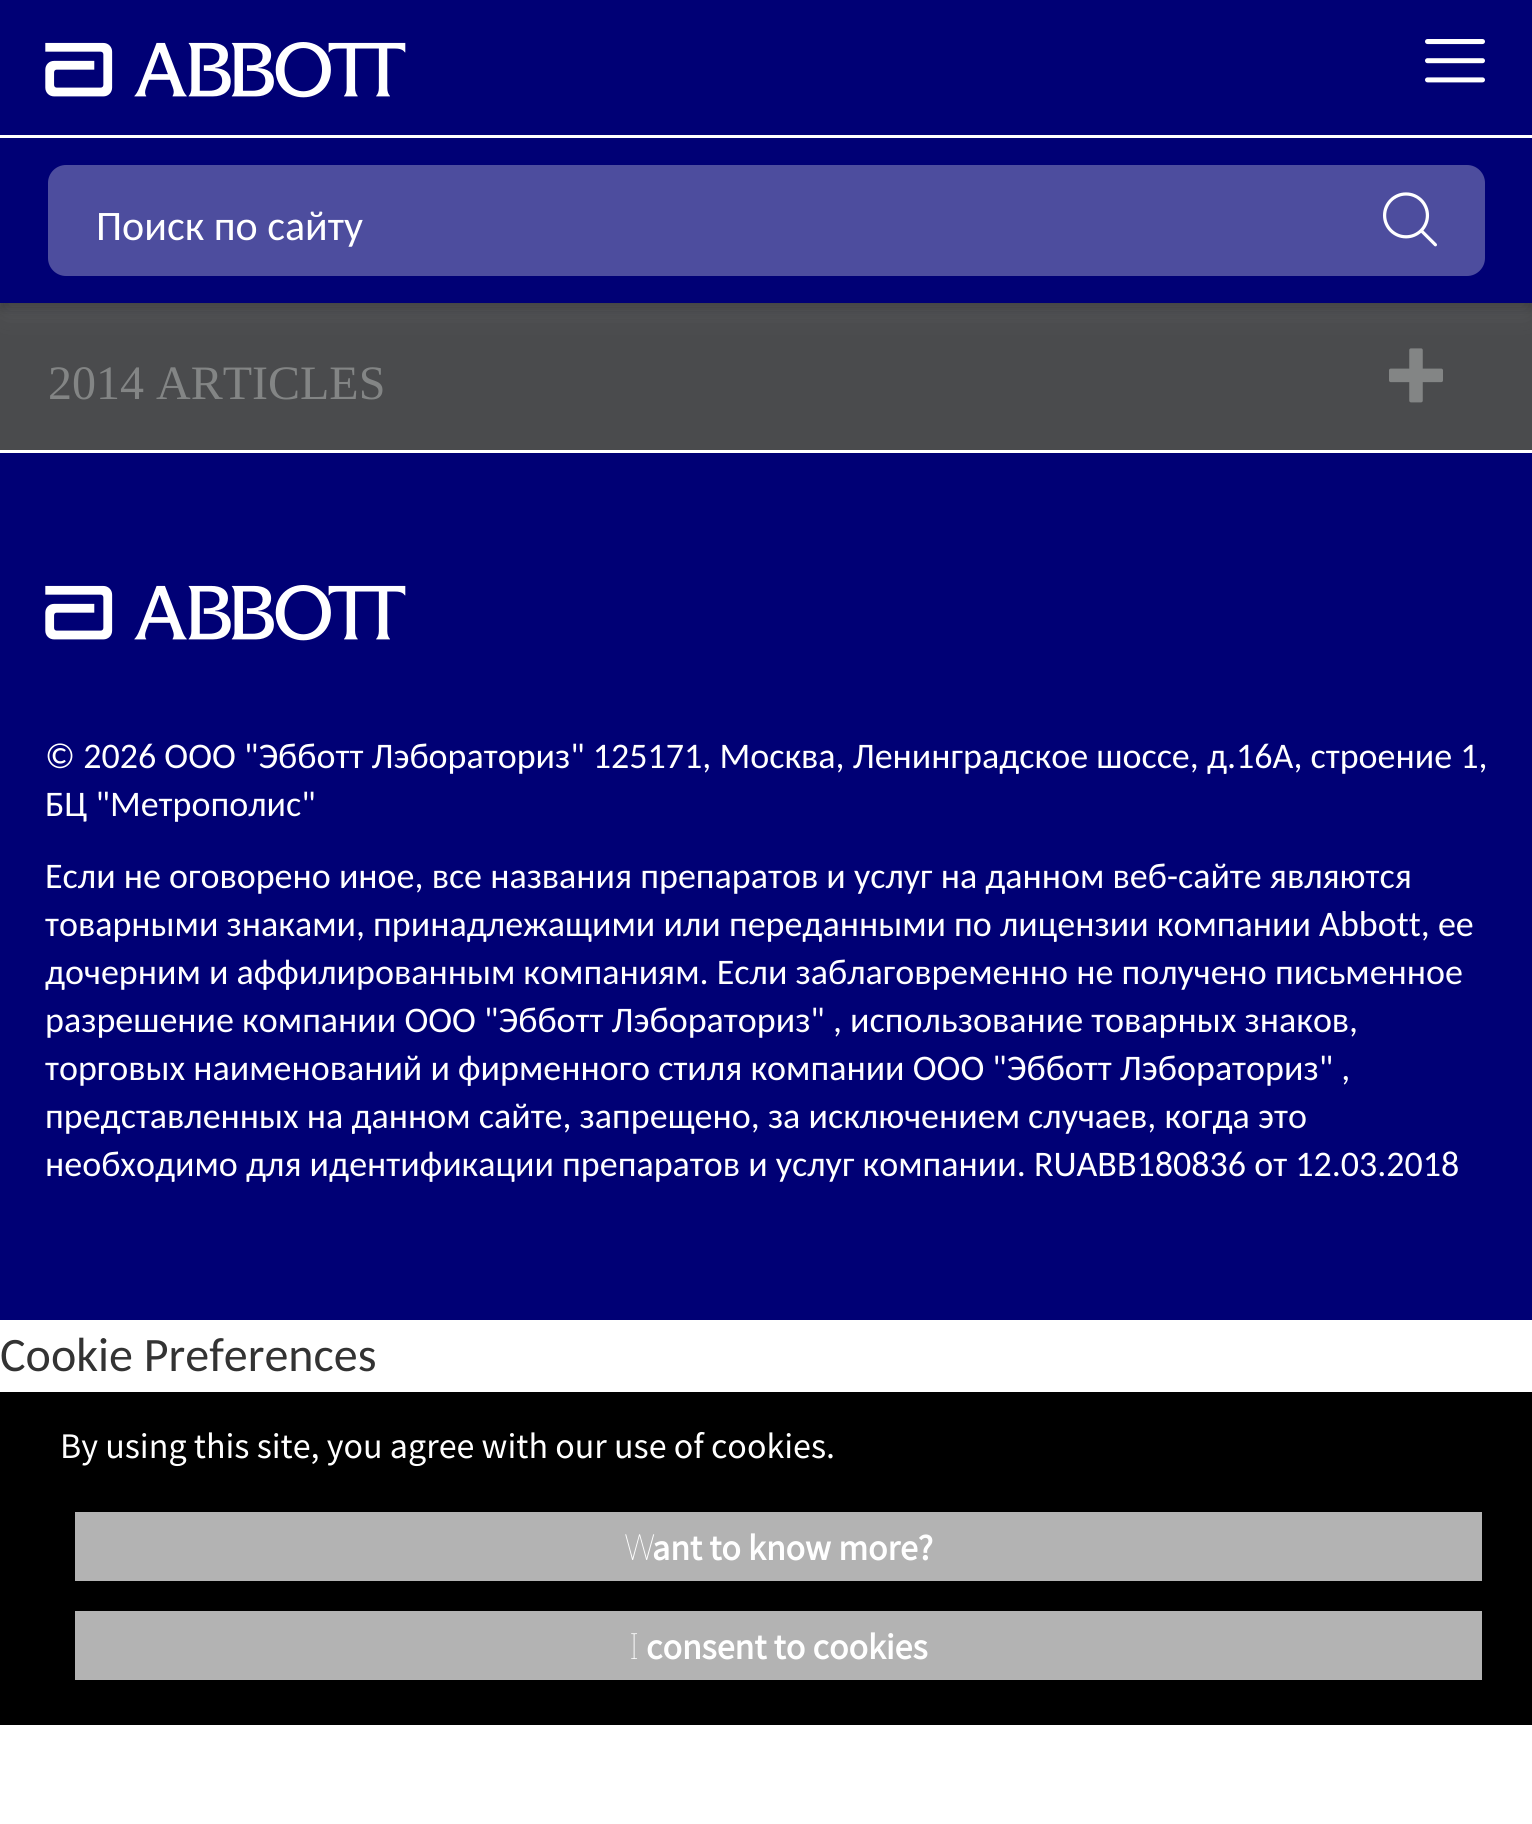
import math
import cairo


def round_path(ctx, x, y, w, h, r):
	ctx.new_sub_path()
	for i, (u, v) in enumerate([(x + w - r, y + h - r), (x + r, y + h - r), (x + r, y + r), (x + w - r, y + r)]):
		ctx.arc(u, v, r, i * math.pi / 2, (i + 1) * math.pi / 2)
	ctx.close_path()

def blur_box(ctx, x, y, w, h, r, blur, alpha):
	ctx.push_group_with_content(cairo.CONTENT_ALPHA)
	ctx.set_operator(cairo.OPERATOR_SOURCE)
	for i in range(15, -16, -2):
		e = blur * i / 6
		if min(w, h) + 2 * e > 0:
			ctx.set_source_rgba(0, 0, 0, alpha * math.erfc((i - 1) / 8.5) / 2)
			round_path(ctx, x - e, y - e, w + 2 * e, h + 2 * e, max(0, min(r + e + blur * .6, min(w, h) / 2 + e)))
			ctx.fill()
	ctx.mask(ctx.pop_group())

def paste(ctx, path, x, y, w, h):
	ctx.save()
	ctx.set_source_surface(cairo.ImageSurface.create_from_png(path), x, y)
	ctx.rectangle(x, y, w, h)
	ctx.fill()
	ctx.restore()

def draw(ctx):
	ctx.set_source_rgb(1, 1, 1)
	ctx.paint()
	ctx.set_source_rgb(0.29, 0.294, 0.302)
	ctx.rectangle(0, 303, 1532, 147)
	ctx.fill()
	ctx.set_source_rgb(0.553, 0.553, 0.58)
	blur_box(ctx, 6, 18, 1521, 291, 0, 12, 0.28)
	ctx.set_source_rgb(0, 0, 0)
	blur_box(ctx, 0, 6, 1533, 303, 0, 6, 0.24)
	ctx.set_source_rgb(0, 0, 0.459)
	ctx.rectangle(0, 0, 1532, 303)
	ctx.fill()
	paste(ctx, 'media/1.png', 1425, 39, 60, 44)
	ctx.set_source_rgb(1, 1, 1)
	ctx.rectangle(0, 135, 1532, 3)
	ctx.fill()
	paste(ctx, 'media/2.png', 45, 42, 361, 56)
	ctx.set_source_rgb(0.302, 0.302, 0.62)
	round_path(ctx, 48, 165, 1437, 111, 18)
	ctx.fill()
	ctx.select_font_face('Carlito')
	ctx.set_font_size(42)
	ctx.set_source_rgb(1, 1, 1)
	ctx.move_to(96, 240)
	ctx.show_text('Поиск по сайту')
	paste(ctx, 'media/3.png', 1383, 192, 54, 55)
	ctx.select_font_face('Liberation Serif')
	ctx.set_font_size(48)
	ctx.set_source_rgb(0.514, 0.522, 0.522)
	ctx.move_to(48, 399)
	ctx.show_text('2014 ARTICLES')
	paste(ctx, 'media/4.png', 1389, 348, 54, 55)
	ctx.set_source_rgb(0, 0, 0.459)
	ctx.rectangle(0, 453, 1532, 867)
	ctx.fill()
	paste(ctx, 'media/2.png', 45, 585, 361, 56)
	ctx.select_font_face('Carlito')
	ctx.set_font_size(36)
	ctx.set_source_rgb(1, 1, 1)
	for x, y, s in [
		(45, 768, '© 2026 ООО "Эбботт Лэбораториз" 125171, Москва, Ленинградское шоссе, д.16А, строение 1,'),
		(45, 816, 'БЦ "Метрополис"'),
		(45, 888, 'Если не оговорено иное, все названия препаратов и услуг на данном веб-сайте являются'),
		(45, 936, 'товарными знаками, принадлежащими или переданными по лицензии компании Abbott, ее'),
		(45, 984, 'дочерним и аффилированным компаниям. Если заблаговременно не получено письменное'),
		(45, 1032, 'разрешение компании ООО "Эбботт Лэбораториз" , использование товарных знаков,'),
		(45, 1080, 'торговых наименований и фирменного стиля компании ООО "Эбботт Лэбораториз" ,'),
		(45, 1128, 'представленных на данном сайте, запрещено, за исключением случаев, когда это'),
		(45, 1176, 'необходимо для идентификации препаратов и услуг компании. RUABB180836 от 12.03.2018'),
	]:
		ctx.move_to(x, y)
		ctx.show_text(s)
	ctx.set_font_size(48)
	ctx.set_source_rgb(0.2, 0.2, 0.2)
	ctx.move_to(0, 1371)
	ctx.show_text('Cookie Preferences')
	ctx.set_source_rgb(0, 0, 0)
	ctx.rectangle(0, 1392, 1532, 333)
	ctx.fill()
	ctx.select_font_face('Source Sans Pro')
	ctx.set_font_size(36)
	ctx.set_source_rgb(1, 1, 1)
	ctx.move_to(60, 1458)
	ctx.show_text('By using this site, you agree with our use of cookies.')
	ctx.set_source_rgb(0.702, 0.702, 0.702)
	ctx.rectangle(75, 1512, 1407, 69)
	ctx.fill()
	ctx.select_font_face('Noto Sans Thin')
	ctx.set_source_rgb(1, 1, 1)
	ctx.move_to(624, 1560)
	ctx.show_text('W')
	ctx.select_font_face('Source Sans Pro', cairo.FONT_SLANT_NORMAL, cairo.FONT_WEIGHT_BOLD)
	ctx.move_to(652, 1560)
	ctx.show_text('ant to know more?')
	ctx.set_source_rgb(0.702, 0.702, 0.702)
	ctx.rectangle(75, 1611, 1407, 69)
	ctx.fill()
	ctx.select_font_face('Noto Sans Thin')
	ctx.set_source_rgb(1, 1, 1)
	ctx.move_to(629, 1659)
	ctx.show_text('I')
	ctx.select_font_face('Source Sans Pro', cairo.FONT_SLANT_NORMAL, cairo.FONT_WEIGHT_BOLD)
	ctx.move_to(646, 1659)
	ctx.show_text('consent to cookies')


surface = cairo.ImageSurface(cairo.FORMAT_RGB24, 1532, 1824)
ctx = cairo.Context(surface)
options = cairo.FontOptions()
options.set_hint_metrics(cairo.HINT_METRICS_OFF)
options.set_hint_style(cairo.HINT_STYLE_NONE)
ctx.set_font_options(options)
ctx.set_miter_limit(4)
draw(ctx)
surface.write_to_png('image.png')
